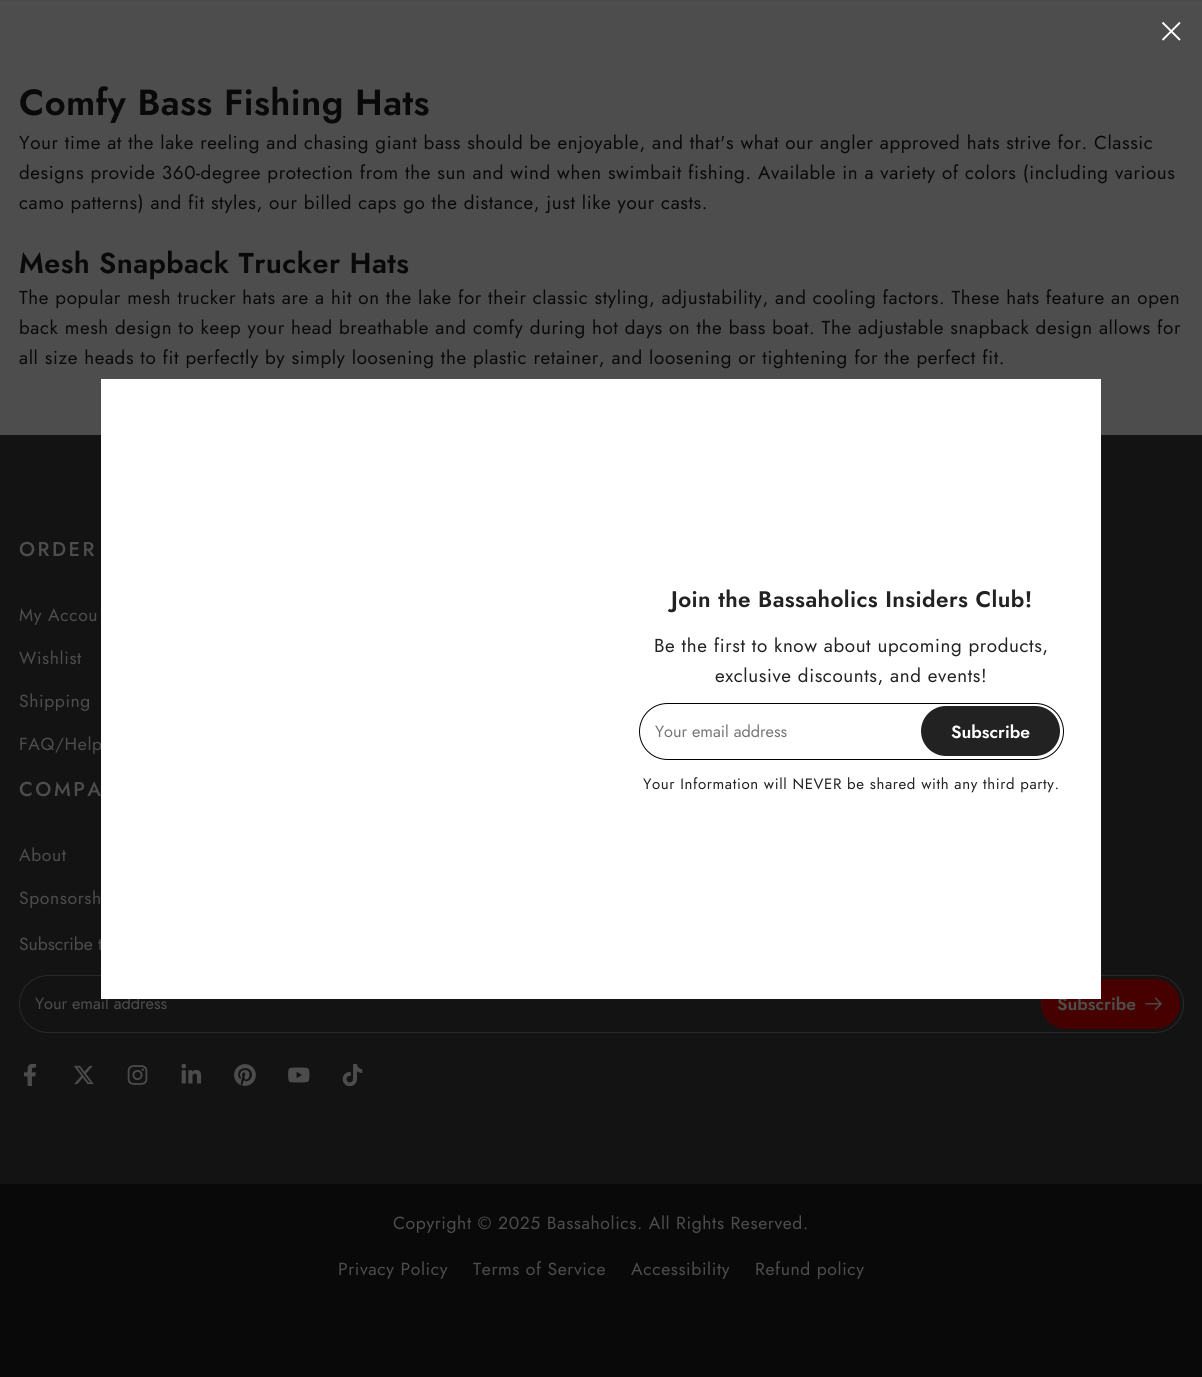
import math
import cairo


def write_spaced(ctx, x, y, s, letter, word):
	ctx.move_to(x, y)
	for ch in s:
		ctx.show_text(ch)
		ctx.rel_move_to(letter + word * (ch == ' '), 0)

def round_path(ctx, x, y, w, h, r):
	ctx.new_sub_path()
	for i, (u, v) in enumerate([(x + w - r, y + h - r), (x + r, y + h - r), (x + r, y + r), (x + w - r, y + r)]):
		ctx.arc(u, v, r, i * math.pi / 2, (i + 1) * math.pi / 2)
	ctx.close_path()

def paste(ctx, path, x, y, w, h):
	ctx.save()
	ctx.set_source_surface(cairo.ImageSurface.create_from_png(path), x, y)
	ctx.rectangle(x, y, w, h)
	ctx.fill()
	ctx.restore()

def draw(ctx):
	ctx.set_source_rgb(0.302, 0.302, 0.302)
	ctx.paint()
	ctx.set_source_rgb(0.29, 0.29, 0.29)
	ctx.rectangle(0, 0, 1202, 1)
	ctx.fill()
	ctx.select_font_face('Jost SemiBold')
	ctx.set_font_size(36.25)
	ctx.set_source_rgb(0.039, 0.039, 0.039)
	write_spaced(ctx, 19, 115, 'Comfy Bass Fishing Hats', 0.4, 0)
	ctx.select_font_face('Jost')
	ctx.set_font_size(18.75)
	for x, y, s in [
		(19, 149, 'Your time at the lake reeling and chasing giant bass should be enjoyable, and that\'s what our angler approved hats strive for. Classic'),
		(19, 179, 'designs provide 360-degree protection from the sun and wind when swimbait fishing. Available in a variety of colors (including various'),
		(19, 209, 'camo patterns) and fit styles, our billed caps go the distance, just like your casts.'),
	]:
		write_spaced(ctx, x, y, s, 0.62, 0)
	ctx.select_font_face('Jost SemiBold')
	ctx.set_font_size(28.75)
	write_spaced(ctx, 19, 273, 'Mesh Snapback Trucker Hats', 0.4, 0)
	ctx.select_font_face('Jost')
	ctx.set_font_size(18.75)
	for x, y, s in [
		(19, 304, 'The popular mesh trucker hats are a hit on the lake for their classic styling, adjustability, and cooling factors. These hats feature an open'),
		(19, 334, 'back mesh design to keep your head breathable and comfy during hot days on the bass boat. The adjustable snapback design allows for'),
		(19, 364, 'all size heads to fit perfectly by simply loosening the plastic retainer, and loosening or tightening for the perfect fit.'),
	]:
		write_spaced(ctx, x, y, s, 0.62, 0)
	ctx.set_source_rgb(0.075, 0.075, 0.075)
	ctx.rectangle(0, 435, 1202, 749)
	ctx.fill()
	ctx.select_font_face('Jost Medium')
	ctx.set_font_size(20)
	ctx.set_source_rgb(0.302, 0.302, 0.302)
	write_spaced(ctx, 19, 556, 'ORDER', 2.5, 0)
	ctx.select_font_face('Jost')
	ctx.set_font_size(17.5)
	for x, y, s in [
		(19, 621, 'My Accou'),
		(19, 664, 'Wishlist'),
		(19, 707, 'Shipping'),
		(19, 750, 'FAQ/Help'),
	]:
		write_spaced(ctx, x, y, s, 0.62, 0)
	ctx.select_font_face('Jost Medium')
	ctx.set_font_size(20)
	write_spaced(ctx, 19, 796, 'COMPA', 2.5, 0)
	ctx.select_font_face('Jost')
	ctx.set_font_size(17.5)
	write_spaced(ctx, 19, 861, 'About', 0.62, 0)
	write_spaced(ctx, 19, 904, 'Sponsorsh', 0.62, 0)
	ctx.move_to(19, 950)
	ctx.show_text('Subscribe t')
	round_path(ctx, 19.5, 975.5, 1164, 57, 28.5)
	ctx.set_source_rgb(0.161, 0.161, 0.161)
	ctx.set_line_width(1)
	ctx.stroke()
	ctx.set_font_size(16.25)
	ctx.set_source_rgb(0.302, 0.302, 0.302)
	ctx.move_to(35, 1009)
	ctx.show_text('Your email address')
	ctx.set_source_rgb(0.278, 0, 0)
	round_path(ctx, 1041, 979, 139, 50, 25)
	ctx.fill()
	ctx.select_font_face('Jost SemiBold')
	ctx.set_font_size(17.5)
	ctx.set_source_rgb(0.302, 0.302, 0.302)
	ctx.move_to(1057, 1010)
	ctx.show_text('Subscribe')
	paste(ctx, 'media/1.png', 1145, 997, 17, 14)
	paste(ctx, 'media/2.png', 23, 1064, 14, 22)
	paste(ctx, 'media/3.png', 73, 1065, 21, 20)
	paste(ctx, 'media/4.png', 127, 1065, 21, 20)
	paste(ctx, 'media/5.png', 181, 1064, 21, 20)
	paste(ctx, 'media/6.png', 234, 1064, 22, 22)
	paste(ctx, 'media/7.png', 288, 1067, 22, 16)
	paste(ctx, 'media/8.png', 342, 1064, 21, 22)
	ctx.set_source_rgb(0.039, 0.039, 0.039)
	ctx.rectangle(0, 1184, 1202, 193)
	ctx.fill()
	ctx.select_font_face('Jost')
	ctx.set_source_rgb(0.302, 0.302, 0.302)
	for x, y, s in [
		(393, 1229, 'Copyright © 2025 Bassaholics. All Rights Reserved.'),
		(338, 1275, 'Privacy Policy'),
		(473, 1275, 'Terms of Service'),
		(631, 1275, 'Accessibility'),
		(755, 1275, 'Refund policy'),
	]:
		write_spaced(ctx, x, y, s, 0.62, 0)
	ctx.set_source_rgb(1, 1, 1)
	ctx.rectangle(101, 379, 1000, 620)
	ctx.fill()
	ctx.new_path()
	ctx.move_to(1180, 22.5)
	ctx.line_to(1162.5, 40)
	ctx.move_to(1180, 40)
	ctx.line_to(1162.5, 22.5)
	ctx.set_line_width(1.9)
	ctx.stroke()
	ctx.select_font_face('Jost SemiBold')
	ctx.set_font_size(22.5)
	ctx.set_source_rgb(0.133, 0.133, 0.133)
	write_spaced(ctx, 671, 607, 'Join the Bassaholics Insiders Club!', 0.4, 0)
	ctx.select_font_face('Jost')
	ctx.set_font_size(18.75)
	write_spaced(ctx, 654, 652, 'Be the first to know about upcoming products,', 0.62, 0)
	write_spaced(ctx, 715, 682, 'exclusive discounts, and events!', 0.62, 0)
	round_path(ctx, 639.5, 703.5, 424, 56, 28)
	ctx.set_source_rgb(0, 0, 0)
	ctx.set_line_width(1)
	ctx.stroke()
	ctx.set_font_size(16.25)
	ctx.set_source_rgb(0.459, 0.459, 0.459)
	ctx.move_to(655, 737)
	ctx.show_text('Your email address')
	ctx.set_source_rgb(0.133, 0.133, 0.133)
	round_path(ctx, 921, 706, 139, 50, 25)
	ctx.fill()
	ctx.select_font_face('Jost SemiBold')
	ctx.set_font_size(17.5)
	ctx.set_source_rgb(1, 1, 1)
	ctx.move_to(951, 738)
	ctx.show_text('Subscribe')
	ctx.select_font_face('Jost')
	ctx.set_font_size(15)
	ctx.set_source_rgb(0.133, 0.133, 0.133)
	write_spaced(ctx, 643, 789, 'Your Information will NEVER be shared with any third party.', 0.62, 0)


surface = cairo.ImageSurface(cairo.FORMAT_RGB24, 1202, 1377)
ctx = cairo.Context(surface)
options = cairo.FontOptions()
options.set_hint_metrics(cairo.HINT_METRICS_OFF)
options.set_hint_style(cairo.HINT_STYLE_NONE)
ctx.set_font_options(options)
ctx.set_miter_limit(4)
draw(ctx)
surface.write_to_png('image.png')
